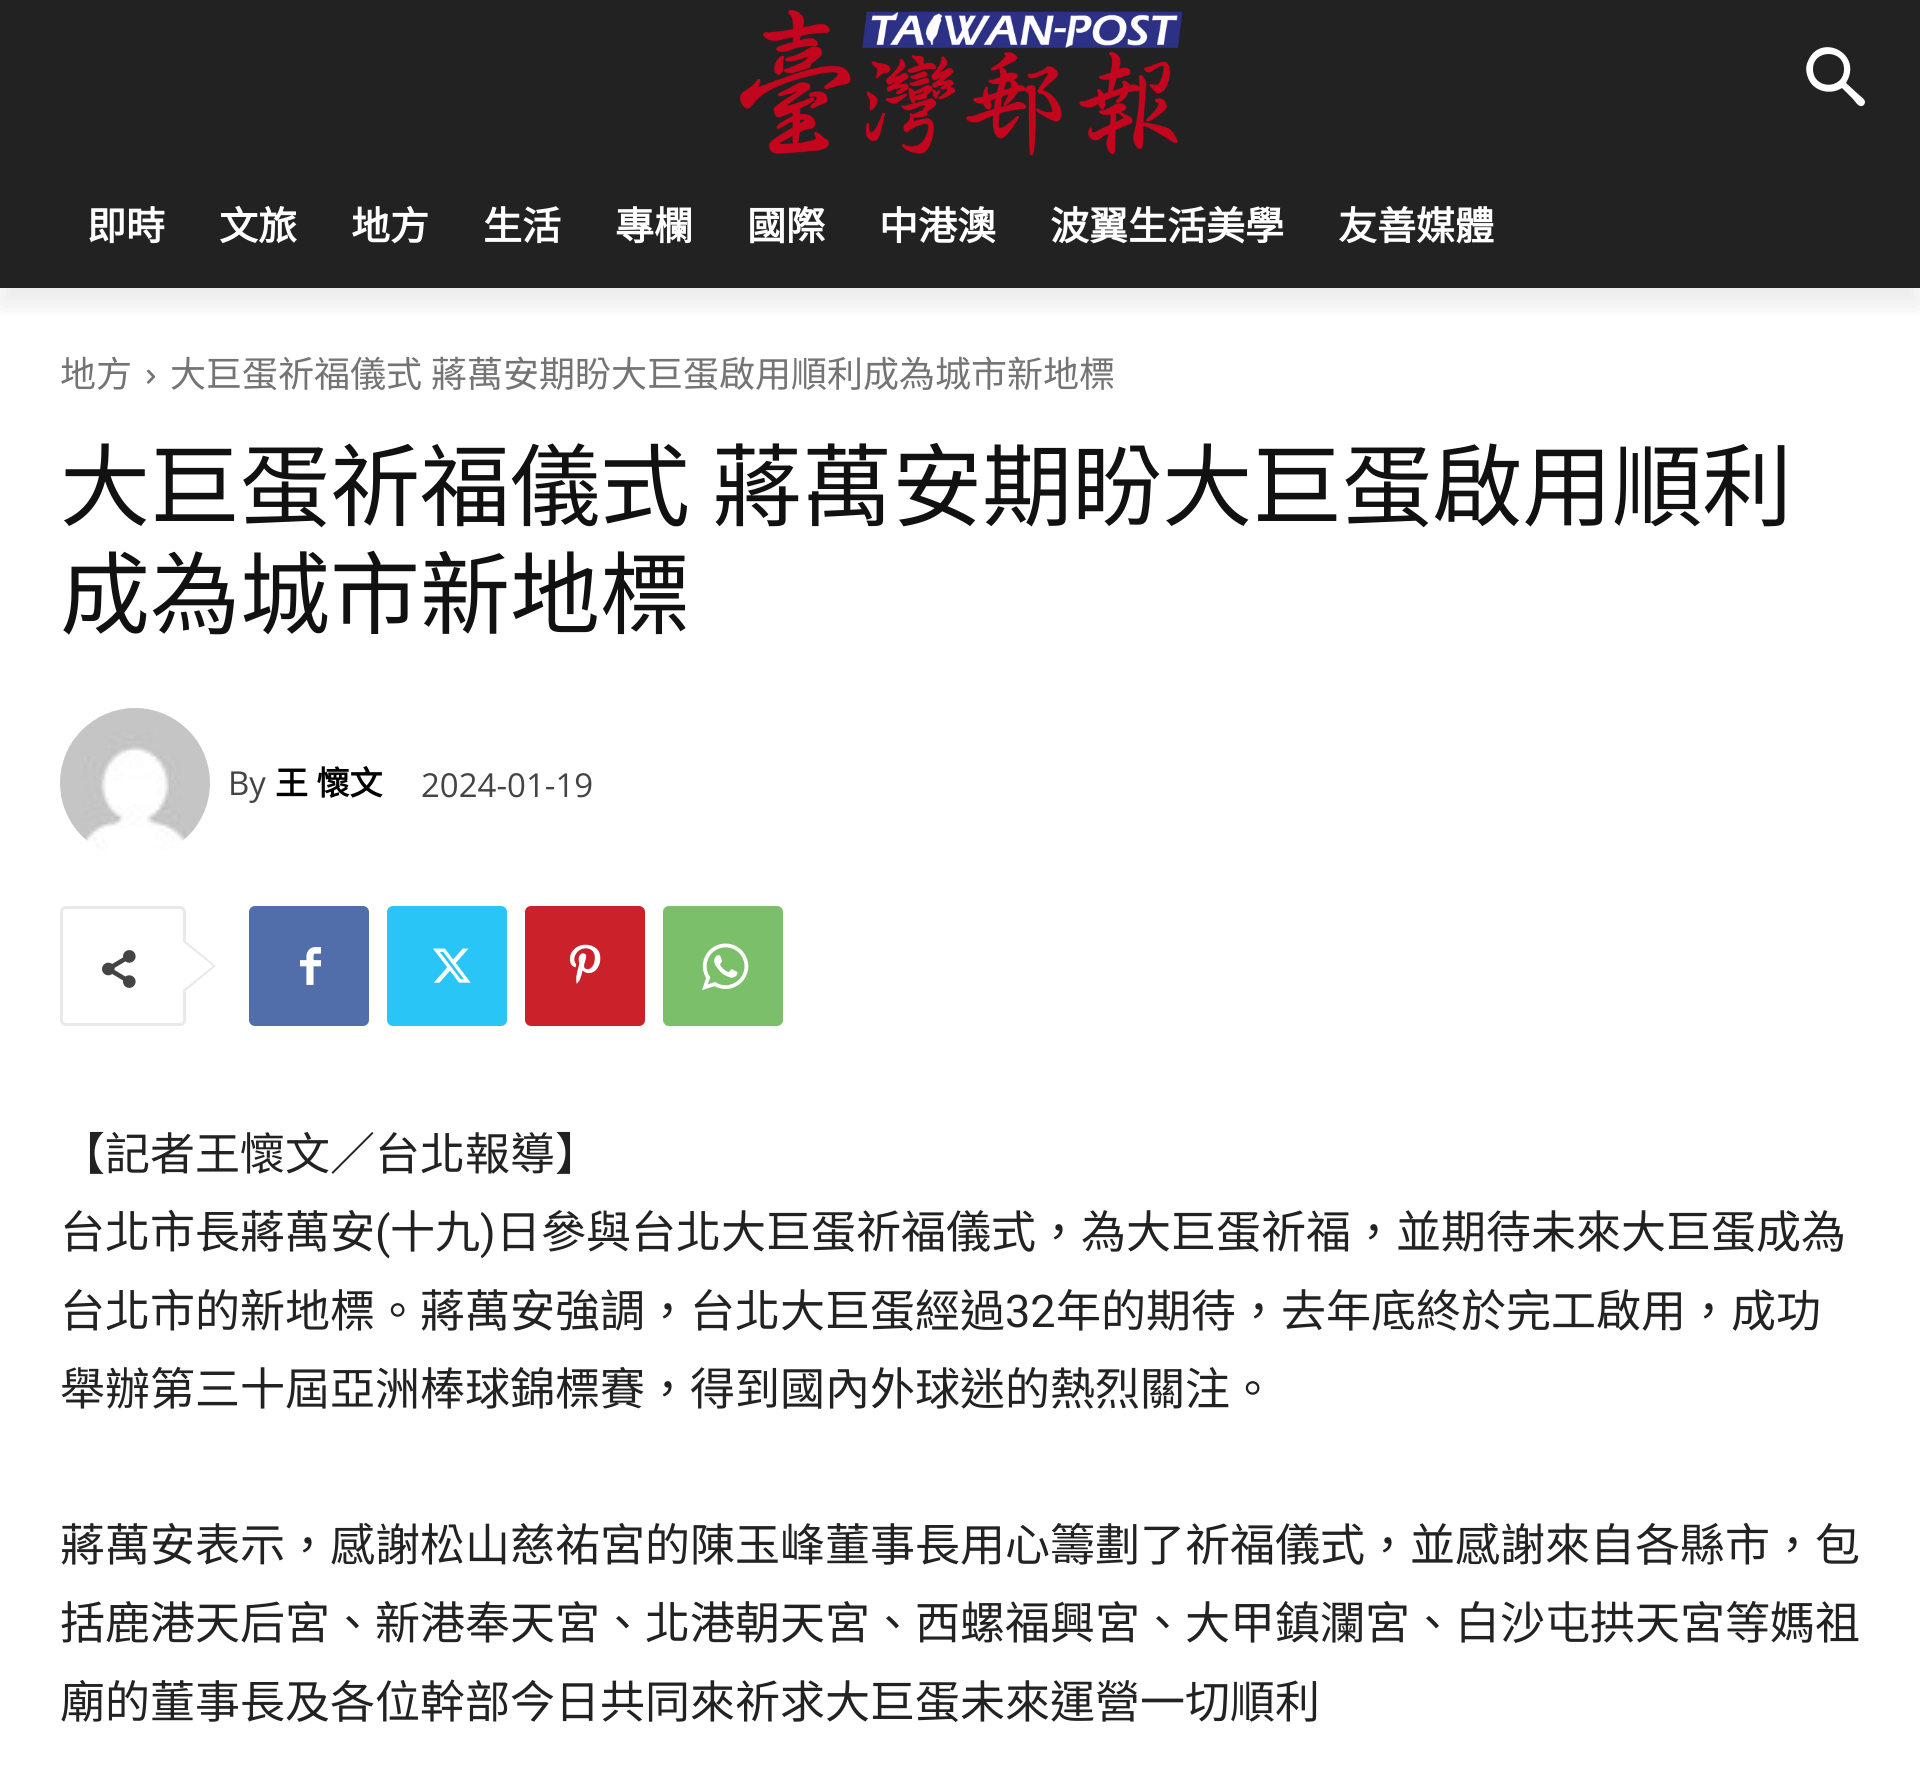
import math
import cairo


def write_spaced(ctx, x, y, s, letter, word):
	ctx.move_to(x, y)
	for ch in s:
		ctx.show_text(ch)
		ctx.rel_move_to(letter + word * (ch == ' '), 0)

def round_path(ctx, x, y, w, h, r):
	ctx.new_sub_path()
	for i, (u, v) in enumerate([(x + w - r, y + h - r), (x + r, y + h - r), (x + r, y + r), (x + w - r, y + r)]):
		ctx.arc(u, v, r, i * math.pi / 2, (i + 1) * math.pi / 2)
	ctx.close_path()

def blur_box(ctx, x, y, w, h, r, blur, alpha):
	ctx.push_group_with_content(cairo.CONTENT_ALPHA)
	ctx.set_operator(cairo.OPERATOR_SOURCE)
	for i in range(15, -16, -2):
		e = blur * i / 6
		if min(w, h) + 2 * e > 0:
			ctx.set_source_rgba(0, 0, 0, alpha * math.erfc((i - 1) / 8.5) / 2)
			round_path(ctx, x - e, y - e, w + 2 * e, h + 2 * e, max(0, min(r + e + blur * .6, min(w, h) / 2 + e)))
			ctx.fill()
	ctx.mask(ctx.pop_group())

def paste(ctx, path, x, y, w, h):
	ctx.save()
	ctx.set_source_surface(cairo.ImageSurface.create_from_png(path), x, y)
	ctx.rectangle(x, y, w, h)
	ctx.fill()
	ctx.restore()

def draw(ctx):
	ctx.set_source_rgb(1, 1, 1)
	ctx.paint()
	ctx.set_source_rgb(0.133, 0.133, 0.133)
	ctx.rectangle(0, 0, 1920, 288)
	ctx.fill()
	paste(ctx, 'media/1.png', 740, 9, 443, 147)
	ctx.set_source_rgb(1, 1, 1)
	ctx.new_path()
	ctx.move_to(1844, 69)
	ctx.curve_to(1844, 90, 1813, 90, 1813, 69)
	ctx.curve_to(1813, 49, 1844, 49, 1844, 69)
	ctx.close_path()
	ctx.move_to(1865, 102)
	ctx.curve_to(1865, 99, 1860, 96, 1858, 94)
	ctx.line_to(1846, 83)
	ctx.curve_to(1864, 53, 1820, 32, 1808, 61)
	ctx.curve_to(1805, 67, 1806, 74, 1809, 80)
	ctx.curve_to(1815, 92, 1831, 95, 1842, 88)
	ctx.line_to(1853, 99)
	ctx.curve_to(1855, 101, 1858, 107, 1862, 106)
	ctx.curve_to(1863, 106, 1865, 104, 1865, 102)
	ctx.close_path()
	ctx.fill()
	ctx.save()
	ctx.rectangle(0, 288, 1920, 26)
	ctx.clip()
	ctx.set_source_rgb(0, 0, 0)
	blur_box(ctx, 0, 18, 1920, 288, 0, 12, 0.08)
	ctx.restore()
	ctx.select_font_face('Noto Sans CJK TC', cairo.FONT_SLANT_NORMAL, cairo.FONT_WEIGHT_BOLD)
	ctx.set_font_size(39)
	for x, y, s in [
		(87, 240, '即時'),
		(219, 240, '文旅'),
		(351, 240, '地方'),
		(483, 240, '生活'),
		(615, 240, '專欄'),
		(747, 240, '國際'),
		(879, 240, '中港澳'),
		(1050, 240, '波翼生活美學'),
		(1338, 240, '友善媒體'),
	]:
		ctx.move_to(x, y)
		ctx.show_text(s)
	ctx.select_font_face('Noto Sans CJK TC')
	ctx.set_font_size(36)
	ctx.set_source_rgb(0.455, 0.455, 0.455)
	ctx.move_to(60, 387)
	ctx.show_text('地方')
	paste(ctx, 'media/2.png', 147, 369, 9, 15)
	write_spaced(ctx, 170, 387, '大巨蛋祈福儀式 蔣萬安期盼大巨蛋啟用順利成為城市新地標', 0, 1)
	ctx.set_font_size(90)
	ctx.set_source_rgb(0.067, 0.067, 0.067)
	write_spaced(ctx, 60, 519, '大巨蛋祈福儀式 蔣萬安期盼大巨蛋啟用順利', 0, 2)
	ctx.move_to(60, 627)
	ctx.show_text('成為城市新地標')
	paste(ctx, 'media/3.png', 60, 708, 150, 143)
	ctx.select_font_face('Open Sans')
	ctx.set_font_size(33)
	ctx.set_source_rgb(0.267, 0.267, 0.267)
	ctx.move_to(228, 795)
	ctx.show_text('By')
	ctx.select_font_face('Noto Sans CJK TC', cairo.FONT_SLANT_NORMAL, cairo.FONT_WEIGHT_BOLD)
	ctx.set_source_rgb(0, 0, 0)
	write_spaced(ctx, 275, 795, '王 懷文', 0, 1)
	ctx.select_font_face('Open Sans')
	ctx.set_source_rgb(0.267, 0.267, 0.267)
	ctx.move_to(421, 797)
	ctx.show_text('2024-01-19')
	round_path(ctx, 61.5, 907.5, 123, 117, 4.5)
	ctx.set_source_rgb(0.914, 0.914, 0.914)
	ctx.set_line_width(3)
	ctx.stroke()
	ctx.new_path()
	ctx.move_to(183, 993)
	ctx.line_to(183, 939)
	ctx.line_to(216, 966)
	ctx.close_path()
	ctx.fill()
	paste(ctx, 'media/4.png', 102, 950, 34, 38)
	ctx.set_source_rgb(1, 1, 1)
	ctx.new_path()
	ctx.move_to(183, 990)
	ctx.line_to(183, 942)
	ctx.line_to(213, 966)
	ctx.close_path()
	ctx.fill()
	ctx.set_source_rgb(0.318, 0.431, 0.671)
	round_path(ctx, 249, 906, 120, 120, 6)
	ctx.fill()
	paste(ctx, 'media/5.png', 300, 947, 21, 38)
	ctx.set_source_rgb(0.161, 0.773, 0.965)
	round_path(ctx, 387, 906, 120, 120, 6)
	ctx.fill()
	paste(ctx, 'media/6.png', 433, 948, 38, 35)
	ctx.set_source_rgb(0.792, 0.129, 0.165)
	round_path(ctx, 525, 906, 120, 120, 6)
	ctx.fill()
	paste(ctx, 'media/7.png', 570, 944, 31, 40)
	ctx.set_source_rgb(0.482, 0.749, 0.416)
	round_path(ctx, 663, 906, 120, 120, 6)
	ctx.fill()
	paste(ctx, 'media/8.png', 702, 943, 47, 48)
	ctx.select_font_face('Noto Sans CJK TC')
	ctx.set_font_size(45)
	ctx.set_source_rgb(0.133, 0.133, 0.133)
	ctx.move_to(60, 1170)
	ctx.show_text('【記者王懷文／台北報導】')
	ctx.move_to(60, 1248)
	ctx.show_text('台北市長蔣萬安')
	ctx.select_font_face('Roboto')
	ctx.move_to(375, 1248)
	ctx.show_text('(')
	ctx.select_font_face('Noto Sans CJK TC')
	ctx.move_to(390, 1248)
	ctx.show_text('十九')
	ctx.select_font_face('Roboto')
	ctx.move_to(480, 1248)
	ctx.show_text(')')
	ctx.select_font_face('Noto Sans CJK TC')
	ctx.move_to(496, 1248)
	ctx.show_text('日參與台北大巨蛋祈福儀式，為大巨蛋祈福，並期待未來大巨蛋成為')
	ctx.move_to(60, 1327)
	ctx.show_text('台北市的新地標。蔣萬安強調，台北大巨蛋經過')
	ctx.select_font_face('Roboto')
	ctx.move_to(1005, 1327)
	ctx.show_text('32')
	ctx.select_font_face('Noto Sans CJK TC')
	for x, y, s in [
		(1056, 1327, '年的期待，去年底終於完工啟用，成功'),
		(60, 1405, '舉辦第三十屆亞洲棒球錦標賽，得到國內外球迷的熱烈關注。'),
		(60, 1561, '蔣萬安表示，感謝松山慈祐宮的陳玉峰董事長用心籌劃了祈福儀式，並感謝來自各縣市，包'),
		(60, 1639, '括鹿港天后宮、新港奉天宮、北港朝天宮、西螺福興宮、大甲鎮瀾宮、白沙屯拱天宮等媽祖'),
		(60, 1718, '廟的董事長及各位幹部今日共同來祈求大巨蛋未來運營一切順利'),
	]:
		ctx.move_to(x, y)
		ctx.show_text(s)


surface = cairo.ImageSurface(cairo.FORMAT_RGB24, 1920, 1785)
ctx = cairo.Context(surface)
options = cairo.FontOptions()
options.set_hint_metrics(cairo.HINT_METRICS_OFF)
options.set_hint_style(cairo.HINT_STYLE_NONE)
ctx.set_font_options(options)
ctx.set_miter_limit(4)
draw(ctx)
surface.write_to_png('image.png')
